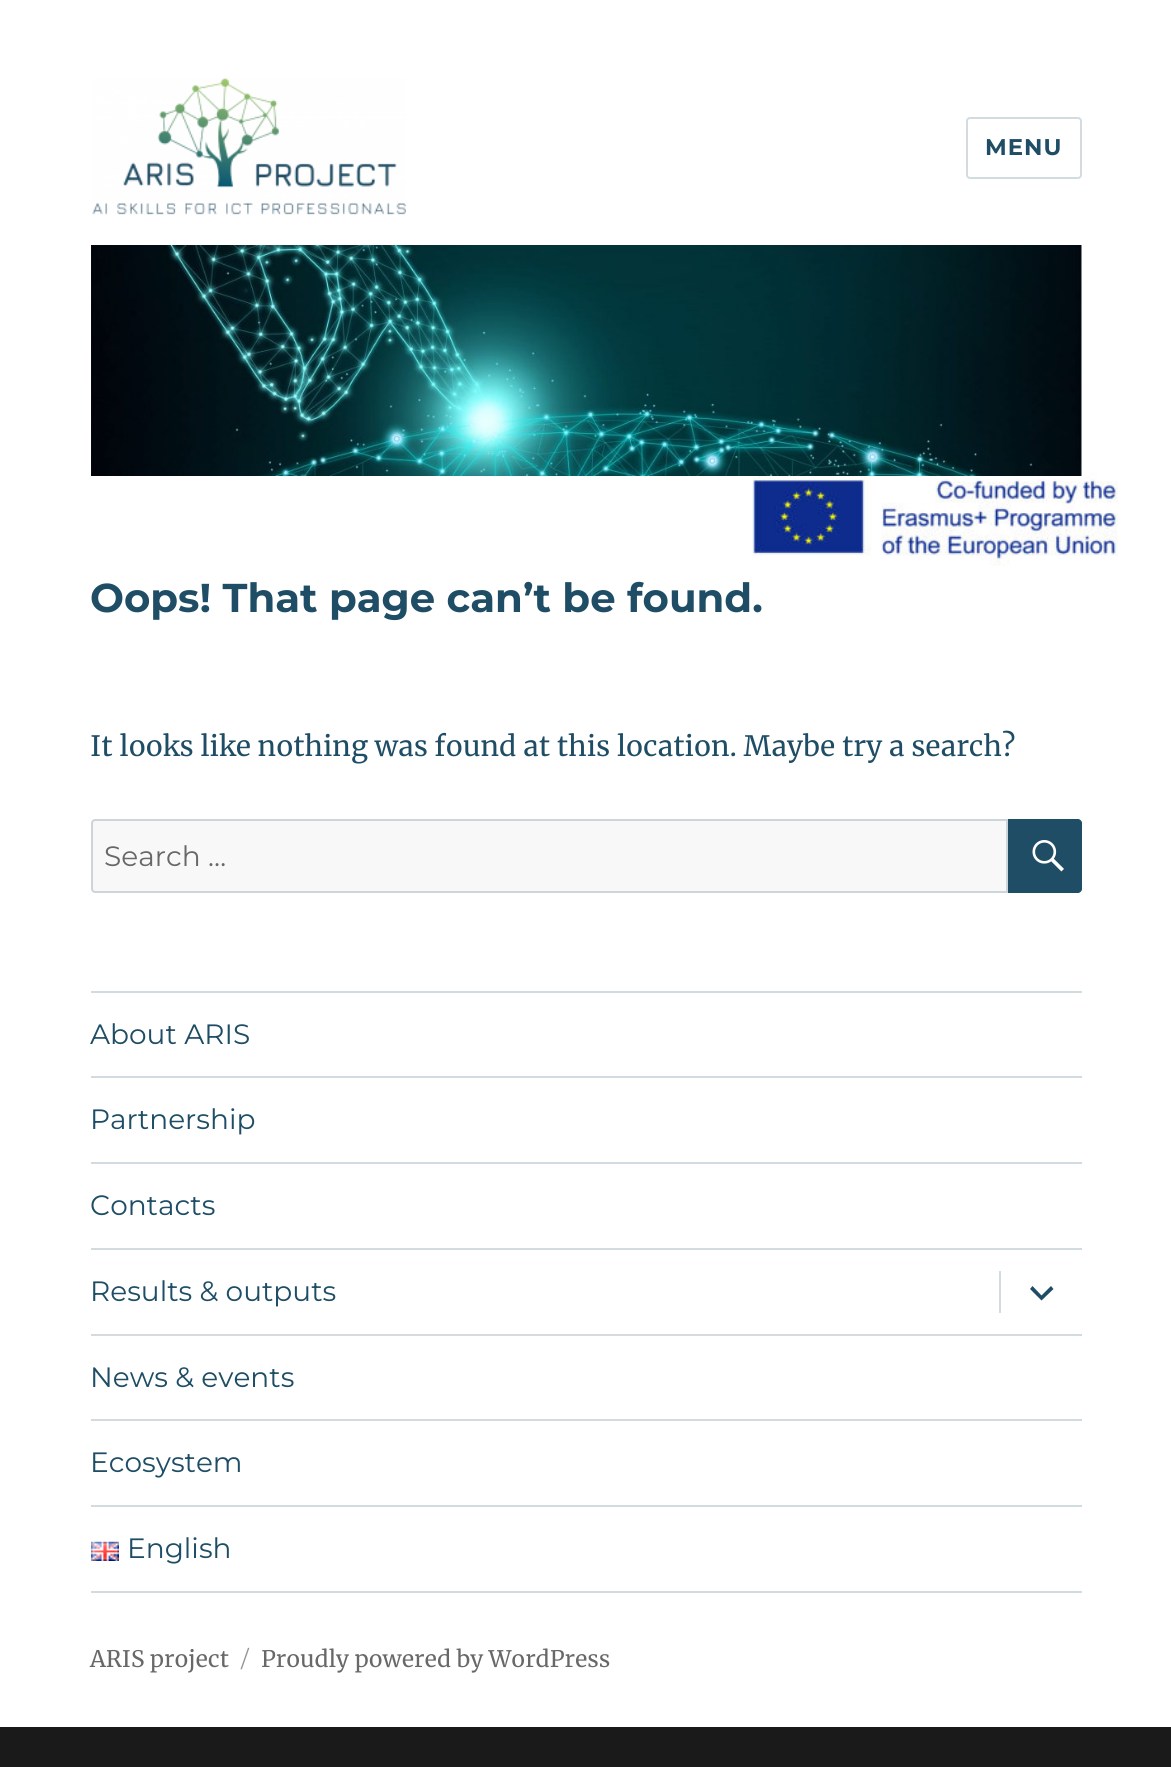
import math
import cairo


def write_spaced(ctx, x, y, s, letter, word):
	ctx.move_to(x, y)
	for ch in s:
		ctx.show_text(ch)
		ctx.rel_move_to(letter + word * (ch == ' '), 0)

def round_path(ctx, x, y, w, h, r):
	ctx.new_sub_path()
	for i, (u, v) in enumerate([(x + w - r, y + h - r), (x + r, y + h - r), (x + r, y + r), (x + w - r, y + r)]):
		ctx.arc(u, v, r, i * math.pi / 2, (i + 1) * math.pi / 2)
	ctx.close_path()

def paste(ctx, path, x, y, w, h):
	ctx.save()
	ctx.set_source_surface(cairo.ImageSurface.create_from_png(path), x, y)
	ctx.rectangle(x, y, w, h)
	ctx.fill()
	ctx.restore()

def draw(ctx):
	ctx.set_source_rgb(0.102, 0.102, 0.102)
	ctx.paint()
	ctx.set_source_rgb(1, 1, 1)
	ctx.rectangle(0, 0, 1171, 1727)
	ctx.fill()
	paste(ctx, 'media/1.png', 752, 471, 366, 95)
	paste(ctx, 'media/2.png', 92, 78, 314, 137)
	round_path(ctx, 967, 118, 114, 60, 3)
	ctx.set_source_rgb(0.824, 0.859, 0.878)
	ctx.stroke()
	ctx.select_font_face('Montserrat Thin')
	ctx.set_font_size(22.75)
	ctx.set_source_rgb(0.118, 0.302, 0.396)
	write_spaced(ctx, 985, 155, 'MENU', 1, 0)
	paste(ctx, 'media/3.png', 91, 245, 991, 231)
	ctx.set_font_size(40.25)
	ctx.move_to(90, 612)
	ctx.show_text('Oops! That page can’t be found.')
	ctx.select_font_face('Merriweather')
	ctx.set_font_size(28)
	ctx.move_to(90, 756)
	ctx.show_text('It looks like nothing was found at this location. Maybe try a search?')
	ctx.set_source_rgb(0.969, 0.969, 0.969)
	ctx.new_path()
	ctx.move_to(95, 819)
	ctx.line_to(1008, 819)
	ctx.line_to(1008, 893)
	ctx.line_to(95, 893)
	ctx.curve_to(93, 893, 91, 891, 91, 889)
	ctx.line_to(91, 823)
	ctx.curve_to(91, 821, 93, 819, 95, 819)
	ctx.close_path()
	ctx.fill()
	ctx.new_path()
	ctx.move_to(95, 820)
	ctx.line_to(1007, 820)
	ctx.line_to(1007, 892)
	ctx.line_to(95, 892)
	ctx.curve_to(93.5, 892, 92, 890.5, 92, 889)
	ctx.line_to(92, 823)
	ctx.curve_to(92, 821.5, 93.5, 820, 95, 820)
	ctx.close_path()
	ctx.set_source_rgba(0.118, 0.302, 0.396, 0.2)
	ctx.stroke()
	ctx.select_font_face('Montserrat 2 Thin')
	ctx.set_source_rgb(0.408, 0.408, 0.408)
	ctx.move_to(104, 866)
	ctx.show_text('Search …')
	ctx.set_source_rgb(0.118, 0.302, 0.396)
	ctx.new_path()
	ctx.move_to(1008, 819)
	ctx.line_to(1078, 819)
	ctx.curve_to(1080, 819, 1082, 821, 1082, 823)
	ctx.line_to(1082, 889)
	ctx.curve_to(1082, 891, 1080, 893, 1078, 893)
	ctx.line_to(1008, 893)
	ctx.close_path()
	ctx.fill()
	paste(ctx, 'media/4.png', 1032, 840, 32, 32)
	ctx.set_source_rgb(0.824, 0.859, 0.878)
	ctx.rectangle(91, 1591, 991, 2)
	ctx.fill()
	ctx.rectangle(91, 991, 991, 2)
	ctx.fill()
	ctx.set_source_rgb(0.118, 0.302, 0.396)
	ctx.move_to(90, 1044)
	ctx.show_text('About ARIS')
	ctx.set_source_rgb(0.824, 0.859, 0.878)
	ctx.rectangle(91, 1076, 991, 2)
	ctx.fill()
	ctx.set_source_rgb(0.118, 0.302, 0.396)
	ctx.move_to(90, 1129)
	ctx.show_text('Partnership')
	ctx.set_source_rgb(0.824, 0.859, 0.878)
	ctx.rectangle(91, 1162, 991, 2)
	ctx.fill()
	ctx.set_source_rgb(0.118, 0.302, 0.396)
	ctx.move_to(90, 1215)
	ctx.show_text('Contacts')
	ctx.set_source_rgb(0.824, 0.859, 0.878)
	ctx.rectangle(91, 1248, 991, 2)
	ctx.fill()
	ctx.set_source_rgb(0.118, 0.302, 0.396)
	ctx.move_to(90, 1301)
	ctx.show_text('Results & outputs')
	ctx.set_source_rgb(0.824, 0.859, 0.878)
	ctx.rectangle(999, 1271, 2, 42)
	ctx.fill()
	ctx.set_source_rgb(0.118, 0.302, 0.396)
	ctx.new_path()
	ctx.move_to(1051, 1286)
	ctx.line_to(1053.5, 1289)
	ctx.line_to(1041.5, 1300.5)
	ctx.line_to(1030, 1289)
	ctx.line_to(1032.5, 1286)
	ctx.line_to(1041.5, 1295.5)
	ctx.close_path()
	ctx.fill()
	ctx.set_source_rgb(0.824, 0.859, 0.878)
	ctx.rectangle(91, 1334, 991, 2)
	ctx.fill()
	ctx.set_source_rgb(0.118, 0.302, 0.396)
	ctx.move_to(90, 1387)
	ctx.show_text('News & events')
	ctx.set_source_rgb(0.824, 0.859, 0.878)
	ctx.rectangle(91, 1419, 991, 2)
	ctx.fill()
	ctx.set_source_rgb(0.118, 0.302, 0.396)
	ctx.move_to(90, 1472)
	ctx.show_text('Ecosystem')
	ctx.set_source_rgb(0.824, 0.859, 0.878)
	ctx.rectangle(91, 1505, 991, 2)
	ctx.fill()
	paste(ctx, 'media/5.png', 91, 1541, 28, 20)
	ctx.set_source_rgb(0.118, 0.302, 0.396)
	ctx.move_to(127, 1558)
	ctx.show_text('English')
	ctx.select_font_face('Merriweather')
	ctx.set_font_size(22.75)
	ctx.set_source_rgb(0.408, 0.408, 0.408)
	ctx.move_to(90, 1667)
	ctx.show_text('ARIS project')
	ctx.select_font_face('Montserrat 2 Thin')
	ctx.set_source_rgb(0.584, 0.584, 0.584)
	ctx.move_to(241, 1667)
	ctx.show_text('/')
	ctx.select_font_face('Merriweather')
	ctx.set_source_rgb(0.408, 0.408, 0.408)
	ctx.move_to(261, 1667)
	ctx.show_text('Proudly powered by WordPress')


surface = cairo.ImageSurface(cairo.FORMAT_RGB24, 1171, 1767)
ctx = cairo.Context(surface)
options = cairo.FontOptions()
options.set_hint_metrics(cairo.HINT_METRICS_OFF)
options.set_hint_style(cairo.HINT_STYLE_NONE)
ctx.set_font_options(options)
ctx.set_miter_limit(4)
draw(ctx)
surface.write_to_png('image.png')
